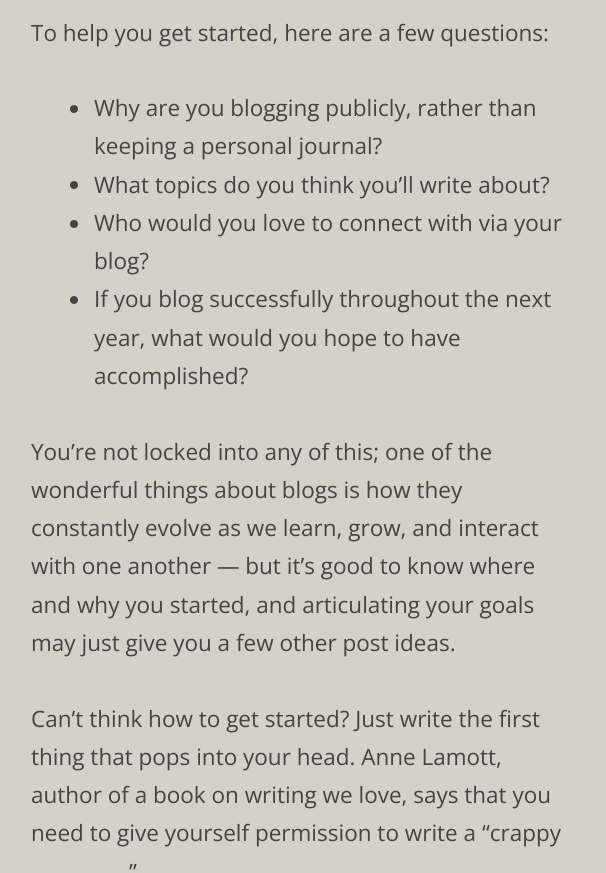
import math
import cairo


def draw(ctx):
	ctx.set_source_rgb(0.839, 0.82, 0.784)
	ctx.paint()
	ctx.select_font_face('Open Sans')
	ctx.set_font_size(22.5)
	ctx.set_source_rgb(0.267, 0.267, 0.267)
	ctx.move_to(31, 41)
	ctx.show_text('To help you get started, here are a few questions:')
	ctx.new_path()
	ctx.arc(74, 109, 4, 0, 2 * math.pi)
	ctx.fill()
	ctx.move_to(94, 116)
	ctx.show_text('Why are you blogging publicly, rather than')
	ctx.move_to(94, 154)
	ctx.show_text('keeping a personal journal?')
	ctx.new_path()
	ctx.arc(74, 185, 4, 0, 2 * math.pi)
	ctx.fill()
	ctx.move_to(94, 193)
	ctx.show_text('What topics do you think you’ll write about?')
	ctx.new_path()
	ctx.arc(74, 224, 4, 0, 2 * math.pi)
	ctx.fill()
	ctx.move_to(94, 231)
	ctx.show_text('Who would you love to connect with via your')
	ctx.move_to(94, 269)
	ctx.show_text('blog?')
	ctx.new_path()
	ctx.arc(74, 300, 4, 0, 2 * math.pi)
	ctx.fill()
	for x, y, s in [
		(94, 307, 'If you blog successfully throughout the next'),
		(94, 346, 'year, what would you hope to have'),
		(94, 384, 'accomplished?'),
		(31, 460, 'You’re not locked into any of this; one of the'),
		(31, 498, 'wonderful things about blogs is how they'),
		(31, 536, 'constantly evolve as we learn, grow, and interact'),
		(31, 574, 'with one another — but it’s good to know where'),
		(31, 613, 'and why you started, and articulating your goals'),
		(31, 651, 'may just give you a few other post ideas.'),
		(31, 727, 'Can’t think how to get started? Just write the first'),
		(31, 765, 'thing that pops into your head. Anne Lamott,'),
		(31, 803, 'author of a book on writing we love, says that you'),
		(31, 841, 'need to give yourself permission to write a “crappy'),
		(129, 880, '”'),
	]:
		ctx.move_to(x, y)
		ctx.show_text(s)


surface = cairo.ImageSurface(cairo.FORMAT_RGB24, 606, 873)
ctx = cairo.Context(surface)
options = cairo.FontOptions()
options.set_hint_metrics(cairo.HINT_METRICS_OFF)
options.set_hint_style(cairo.HINT_STYLE_NONE)
ctx.set_font_options(options)
ctx.set_miter_limit(4)
draw(ctx)
surface.write_to_png('image.png')
